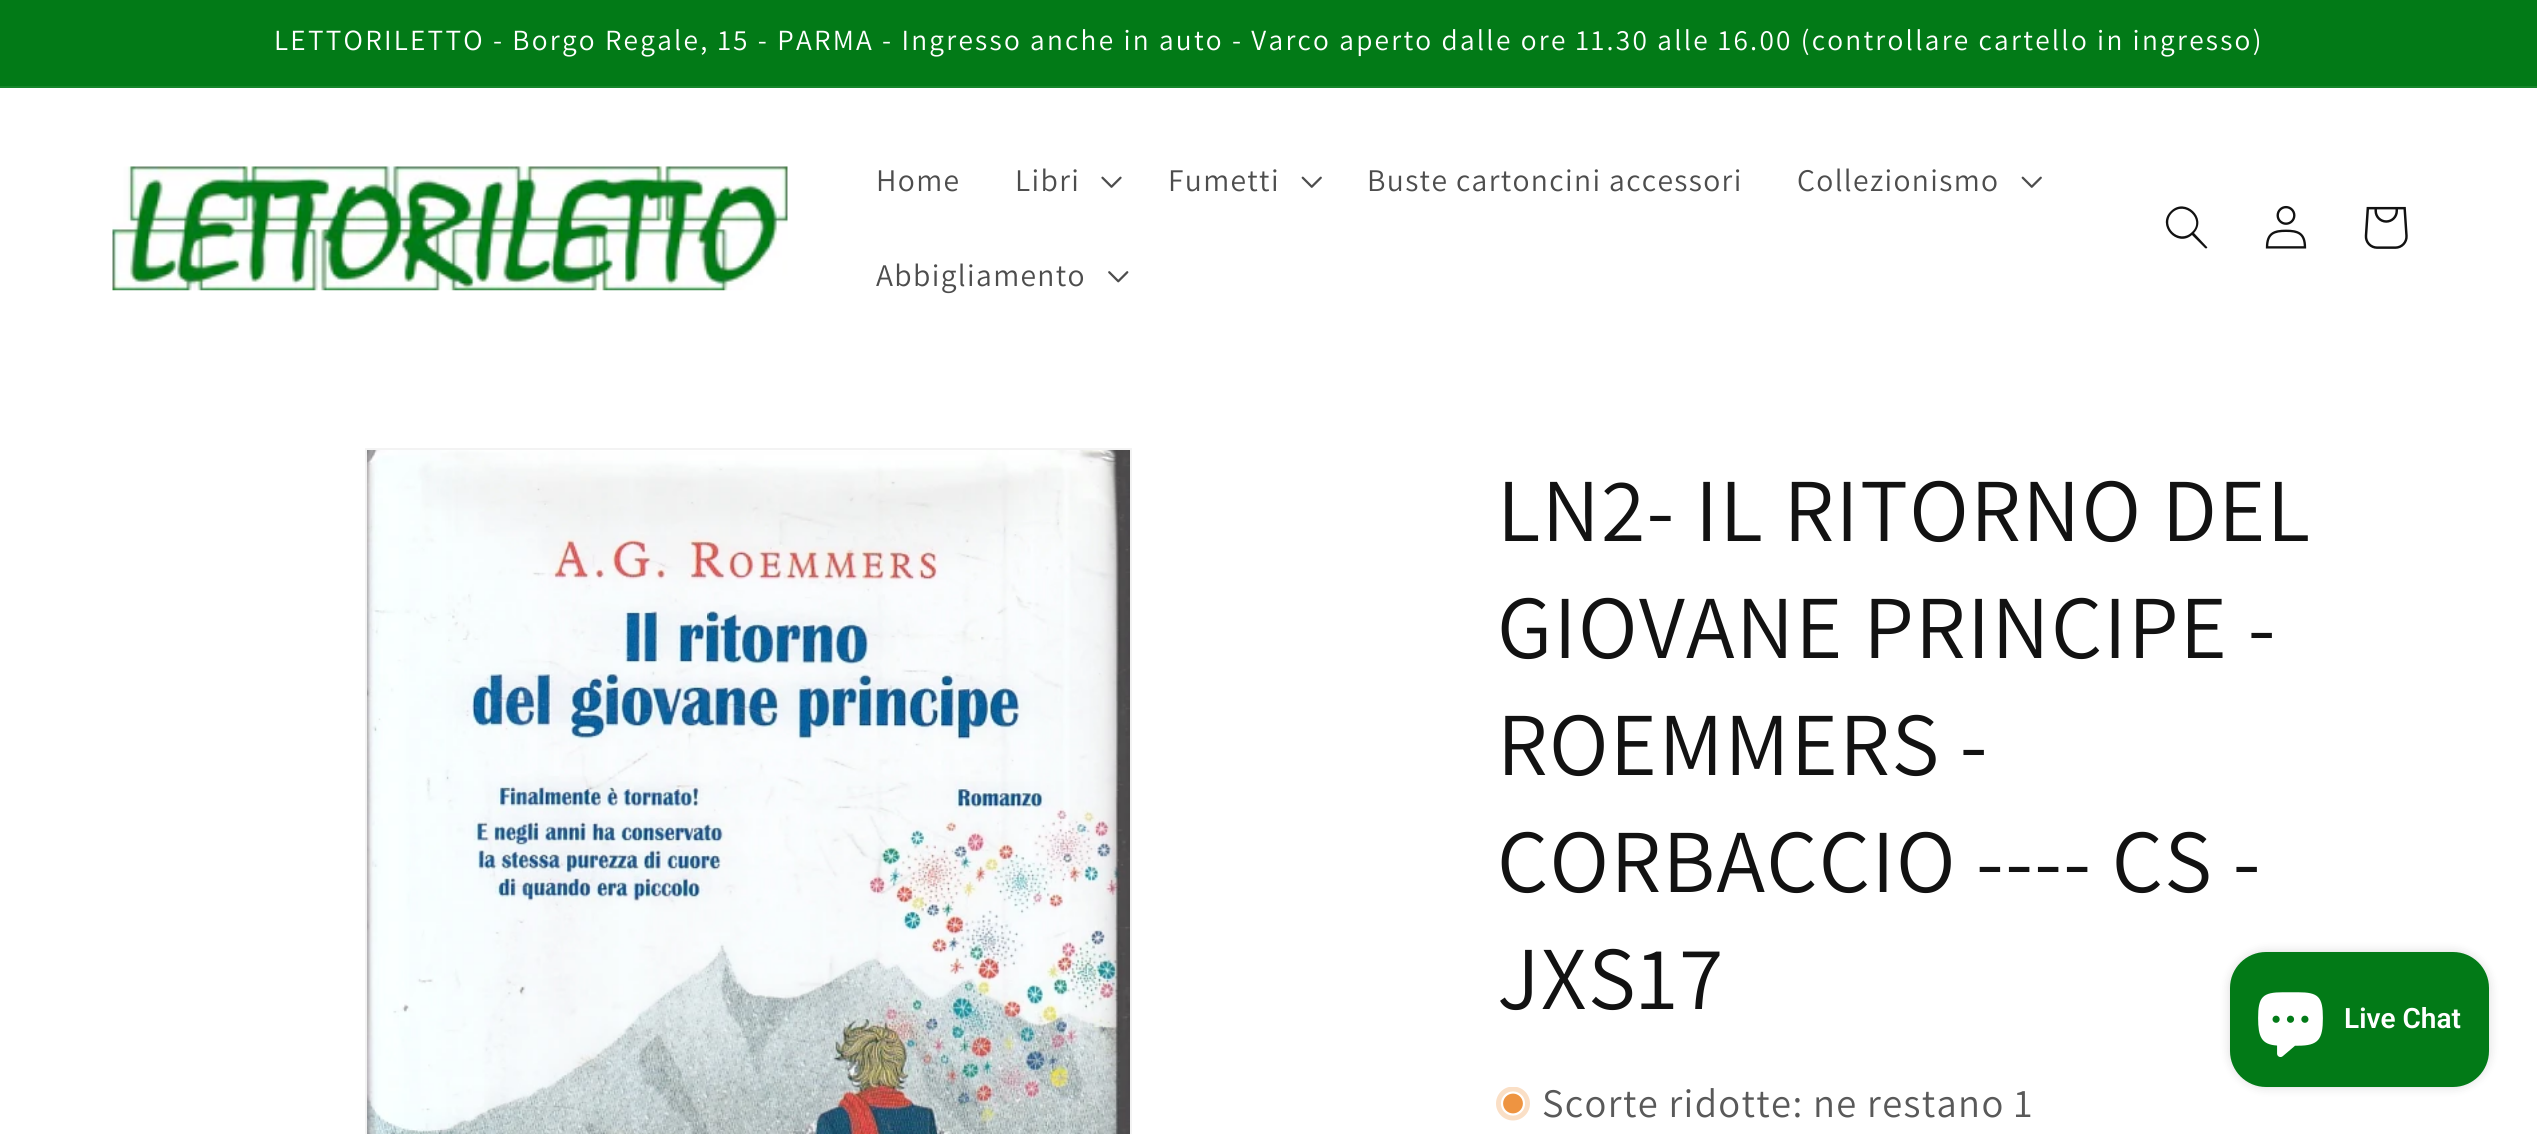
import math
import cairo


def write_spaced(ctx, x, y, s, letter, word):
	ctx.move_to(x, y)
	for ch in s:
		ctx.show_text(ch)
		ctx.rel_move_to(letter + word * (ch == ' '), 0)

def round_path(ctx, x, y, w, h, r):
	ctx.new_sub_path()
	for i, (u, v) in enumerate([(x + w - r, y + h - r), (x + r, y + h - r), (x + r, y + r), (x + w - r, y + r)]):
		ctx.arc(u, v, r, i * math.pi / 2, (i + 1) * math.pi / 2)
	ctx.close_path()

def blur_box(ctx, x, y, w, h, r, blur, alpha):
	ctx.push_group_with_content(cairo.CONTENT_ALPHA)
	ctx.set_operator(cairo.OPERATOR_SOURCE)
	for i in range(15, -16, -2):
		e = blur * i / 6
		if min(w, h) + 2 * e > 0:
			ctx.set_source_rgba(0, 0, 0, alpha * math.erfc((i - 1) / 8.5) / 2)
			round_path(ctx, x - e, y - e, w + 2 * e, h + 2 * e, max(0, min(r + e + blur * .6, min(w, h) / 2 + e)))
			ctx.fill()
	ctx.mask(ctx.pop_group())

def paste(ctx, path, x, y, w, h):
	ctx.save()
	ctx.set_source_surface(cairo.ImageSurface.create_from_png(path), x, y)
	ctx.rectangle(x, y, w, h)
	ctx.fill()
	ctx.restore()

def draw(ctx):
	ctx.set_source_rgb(1, 1, 1)
	ctx.paint()
	ctx.set_source_rgb(0.008, 0.478, 0.09)
	ctx.rectangle(0, 0, 2537, 86)
	ctx.fill()
	ctx.set_source_rgb(0.086, 0.522, 0.165)
	ctx.rectangle(0, 86, 2537, 2)
	ctx.fill()
	ctx.select_font_face('Assistant')
	ctx.set_font_size(29.25)
	ctx.set_source_rgb(1, 1, 1)
	write_spaced(ctx, 274, 50, 'LETTORILETTO - Borgo Regale, 15 - PARMA - Ingresso anche in auto - Varco aperto dalle ore 11.30 alle 16.00 (controllare cartello in ingresso)', 2.25, 0)
	paste(ctx, 'media/1.png', 112, 166, 676, 125)
	ctx.set_font_size(31.5)
	ctx.set_source_rgb(0.302, 0.302, 0.302)
	write_spaced(ctx, 876, 191, 'Home', 1.35, 0)
	write_spaced(ctx, 1015, 191, 'Libri', 1.35, 0)
	paste(ctx, 'media/2.png', 1101, 176, 21, 12)
	write_spaced(ctx, 1168, 191, 'Fumetti', 1.35, 0)
	paste(ctx, 'media/3.png', 1301, 176, 21, 12)
	write_spaced(ctx, 1367, 191, 'Buste cartoncini accessori', 1.35, 0)
	write_spaced(ctx, 1797, 191, 'Collezionismo', 1.35, 0)
	paste(ctx, 'media/3.png', 2021, 176, 21, 12)
	write_spaced(ctx, 876, 286, 'Abbigliamento', 1.35, 0)
	paste(ctx, 'media/4.png', 1108, 271, 21, 12)
	ctx.set_source_rgb(0.071, 0.071, 0.071)
	ctx.set_fill_rule(cairo.FILL_RULE_EVEN_ODD)
	ctx.new_path()
	ctx.move_to(2192, 232)
	ctx.curve_to(2179, 245, 2160, 226, 2172, 213)
	ctx.curve_to(2185, 200, 2205, 220, 2192, 232)
	ctx.move_to(2192, 235)
	ctx.curve_to(2177, 248, 2156, 225, 2171, 211)
	ctx.curve_to(2185, 197, 2208, 218, 2194, 233)
	ctx.line_to(2207, 247)
	ctx.curve_to(2208, 248, 2206, 249, 2205, 248)
	ctx.close_path()
	ctx.fill()
	paste(ctx, 'media/5.png', 2265, 205, 42, 44)
	paste(ctx, 'media/6.png', 2364, 206, 44, 43)
	ctx.rectangle(366, 449, 765, 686)
	ctx.set_source_rgb(0.953, 0.953, 0.953)
	ctx.stroke()
	paste(ctx, 'media/7.png', 367, 450, 763, 684)
	ctx.set_font_size(90)
	ctx.set_source_rgb(0.071, 0.071, 0.071)
	for x, y, s in [
		(1497, 541, 'LN2- IL RITORNO DEL'),
		(1497, 658, 'GIOVANE PRINCIPE -'),
		(1497, 775, 'ROEMMERS -'),
		(1497, 892, 'CORBACCIO ---- CS -'),
		(1497, 1009, 'JXS17'),
	]:
		write_spaced(ctx, x, y, s, 1.35, 0)
	ctx.save()
	ctx.set_fill_rule(cairo.FILL_RULE_WINDING)
	ctx.rectangle(1496, 1087, 34, 34)
	ctx.clip()
	ctx.set_source_rgb(0.98, 0.875, 0.776)
	ctx.arc(1513, 1103.5, 17, 0, 2 * math.pi)
	ctx.fill()
	ctx.restore()
	ctx.set_source_rgb(0.933, 0.58, 0.255)
	ctx.arc(1513, 1103.5, 11, 0, 2 * math.pi)
	ctx.fill_preserve()
	ctx.set_source_rgb(1, 1, 1)
	ctx.set_line_width(2.2)
	ctx.stroke()
	ctx.set_font_size(40.5)
	ctx.set_source_rgb(0.349, 0.349, 0.349)
	write_spaced(ctx, 1542, 1117, 'Scorte ridotte: ne restano 1', 1.35, 0)
	ctx.set_source_rgb(0, 0, 0)
	blur_box(ctx, 2230, 952, 259, 135, 36, 5.5, 0.15)
	ctx.set_source_rgb(0.008, 0.478, 0.09)
	round_path(ctx, 2230, 952, 259, 135, 36)
	ctx.fill()
	paste(ctx, 'media/8.png', 2258, 992, 65, 65)
	ctx.select_font_face('Roboto SemiBold')
	ctx.set_font_size(28)
	ctx.set_source_rgb(1, 1, 1)
	ctx.move_to(2344, 1028)
	ctx.show_text('Live Chat')


surface = cairo.ImageSurface(cairo.FORMAT_RGB24, 2537, 1134)
ctx = cairo.Context(surface)
options = cairo.FontOptions()
options.set_hint_metrics(cairo.HINT_METRICS_OFF)
options.set_hint_style(cairo.HINT_STYLE_NONE)
ctx.set_font_options(options)
ctx.set_miter_limit(4)
draw(ctx)
surface.write_to_png('image.png')
